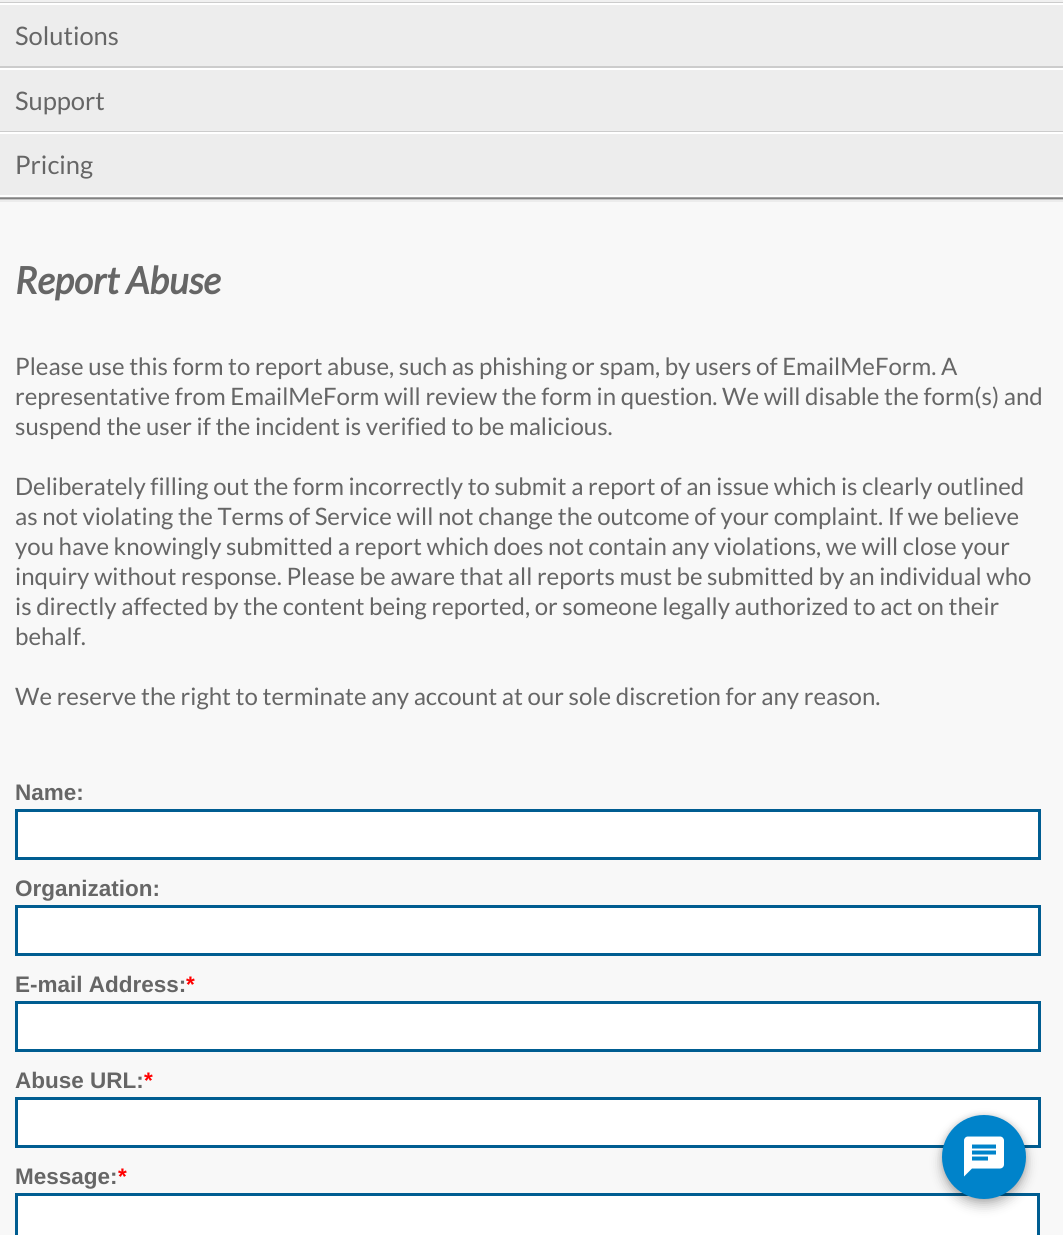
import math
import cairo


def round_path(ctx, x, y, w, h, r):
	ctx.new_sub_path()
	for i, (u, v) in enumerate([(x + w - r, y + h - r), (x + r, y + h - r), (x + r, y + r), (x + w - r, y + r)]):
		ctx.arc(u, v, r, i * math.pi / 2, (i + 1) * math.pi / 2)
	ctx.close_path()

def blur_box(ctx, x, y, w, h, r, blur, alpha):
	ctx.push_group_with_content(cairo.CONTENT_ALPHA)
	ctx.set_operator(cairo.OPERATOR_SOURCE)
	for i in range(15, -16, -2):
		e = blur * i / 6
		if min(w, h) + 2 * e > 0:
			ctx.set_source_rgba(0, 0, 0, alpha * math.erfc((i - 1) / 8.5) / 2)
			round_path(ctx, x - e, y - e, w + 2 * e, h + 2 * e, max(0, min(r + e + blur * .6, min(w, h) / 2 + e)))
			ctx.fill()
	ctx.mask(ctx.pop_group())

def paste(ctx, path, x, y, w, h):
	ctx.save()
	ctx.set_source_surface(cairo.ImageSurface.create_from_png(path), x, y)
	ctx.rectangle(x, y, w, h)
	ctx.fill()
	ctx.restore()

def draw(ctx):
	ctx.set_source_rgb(0.969, 0.969, 0.969)
	ctx.paint()
	ctx.set_source_rgb(0.776, 0.776, 0.776)
	ctx.rectangle(0, 199, 1063, 1)
	ctx.fill()
	ctx.set_source_rgb(0.929, 0.929, 0.929)
	ctx.rectangle(0, 5, 1063, 190)
	ctx.fill()
	ctx.set_source_rgb(0.941, 0.941, 0.941)
	ctx.rectangle(0, 0, 1063, 2)
	ctx.fill()
	ctx.set_source_rgb(0.8, 0.8, 0.8)
	ctx.rectangle(0, 2, 1063, 1)
	ctx.fill()
	ctx.set_source_rgb(1, 1, 1)
	ctx.rectangle(0, 3, 1063, 2)
	ctx.fill()
	ctx.select_font_face('Lato')
	ctx.set_font_size(25.5)
	ctx.set_source_rgb(0.4, 0.4, 0.4)
	ctx.move_to(15, 45)
	ctx.show_text('Solutions')
	ctx.set_source_rgb(0.8, 0.8, 0.8)
	ctx.rectangle(0, 66, 1063, 2)
	ctx.fill()
	ctx.set_source_rgb(1, 1, 1)
	ctx.rectangle(0, 68, 1063, 2)
	ctx.fill()
	ctx.set_source_rgb(0.4, 0.4, 0.4)
	ctx.move_to(15, 110)
	ctx.show_text('Support')
	ctx.set_source_rgb(0.8, 0.8, 0.8)
	ctx.rectangle(0, 131, 1063, 1)
	ctx.fill()
	ctx.set_source_rgb(1, 1, 1)
	ctx.rectangle(0, 132, 1063, 2)
	ctx.fill()
	ctx.set_source_rgb(0.4, 0.4, 0.4)
	ctx.move_to(15, 174)
	ctx.show_text('Pricing')
	ctx.set_source_rgb(1, 1, 1)
	ctx.rectangle(0, 195, 1063, 2)
	ctx.fill()
	ctx.set_source_rgb(0.631, 0.631, 0.631)
	ctx.rectangle(0, 197, 1063, 1)
	ctx.fill()
	ctx.set_source_rgb(0.506, 0.506, 0.506)
	ctx.rectangle(0, 198, 1063, 1)
	ctx.fill()
	ctx.set_source_rgb(0.922, 0.922, 0.922)
	ctx.rectangle(0, 200, 1063, 2)
	ctx.fill()
	ctx.select_font_face('Lato', cairo.FONT_SLANT_ITALIC, cairo.FONT_WEIGHT_BOLD)
	ctx.set_font_size(37.5)
	ctx.set_source_rgb(0.4, 0.4, 0.4)
	ctx.move_to(15, 294)
	ctx.show_text('Report Abuse')
	ctx.select_font_face('Lato')
	ctx.set_font_size(24)
	for x, y, s in [
		(15, 375, 'Please use this form to report abuse, such as phishing or spam, by users of EmailMeForm. A'),
		(15, 405, 'representative from EmailMeForm will review the form in question. We will disable the form(s) and'),
		(15, 435, 'suspend the user if the incident is verified to be malicious.'),
		(15, 495, 'Deliberately filling out the form incorrectly to submit a report of an issue which is clearly outlined'),
		(15, 525, 'as not violating the Terms of Service will not change the outcome of your complaint. If we believe'),
		(15, 555, 'you have knowingly submitted a report which does not contain any violations, we will close your'),
		(15, 585, 'inquiry without response. Please be aware that all reports must be submitted by an individual who'),
		(15, 615, 'is directly affected by the content being reported, or someone legally authorized to act on their'),
		(15, 645, 'behalf.'),
		(15, 705, 'We reserve the right to terminate any account at our sole discretion for any reason.'),
	]:
		ctx.move_to(x, y)
		ctx.show_text(s)
	ctx.select_font_face('Liberation Sans', cairo.FONT_SLANT_NORMAL, cairo.FONT_WEIGHT_BOLD)
	ctx.set_font_size(22.5)
	ctx.move_to(15, 800)
	ctx.show_text('Name:')
	ctx.set_source_rgb(1, 1, 1)
	ctx.rectangle(16.5, 810.5, 1023, 48)
	ctx.fill_preserve()
	ctx.set_source_rgb(0, 0.365, 0.569)
	ctx.set_line_width(3)
	ctx.stroke()
	ctx.set_source_rgb(0.4, 0.4, 0.4)
	ctx.move_to(15, 896)
	ctx.show_text('Organization:')
	ctx.set_source_rgb(1, 1, 1)
	ctx.rectangle(16.5, 906.5, 1023, 48)
	ctx.fill_preserve()
	ctx.set_source_rgb(0, 0.365, 0.569)
	ctx.stroke()
	ctx.set_source_rgb(0.4, 0.4, 0.4)
	ctx.move_to(15, 992)
	ctx.show_text('E-mail Address:')
	ctx.set_source_rgb(1, 0, 0)
	ctx.move_to(186, 992)
	ctx.show_text('*')
	ctx.set_source_rgb(1, 1, 1)
	ctx.rectangle(16.5, 1002.5, 1023, 48)
	ctx.fill_preserve()
	ctx.set_source_rgb(0, 0.365, 0.569)
	ctx.stroke()
	ctx.set_source_rgb(0.4, 0.4, 0.4)
	ctx.move_to(15, 1088)
	ctx.show_text('Abuse URL:')
	ctx.set_source_rgb(1, 0, 0)
	ctx.move_to(144, 1088)
	ctx.show_text('*')
	ctx.set_source_rgb(1, 1, 1)
	ctx.rectangle(16.5, 1098.5, 1023, 48)
	ctx.fill_preserve()
	ctx.set_source_rgb(0, 0.365, 0.569)
	ctx.stroke()
	ctx.set_source_rgb(0.4, 0.4, 0.4)
	ctx.move_to(15, 1184)
	ctx.show_text('Message:')
	ctx.set_source_rgb(1, 0, 0)
	ctx.move_to(118, 1184)
	ctx.show_text('*')
	ctx.set_source_rgb(1, 1, 1)
	ctx.rectangle(16.5, 1194.5, 1022, 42)
	ctx.fill_preserve()
	ctx.set_source_rgb(0, 0.365, 0.569)
	ctx.stroke()
	ctx.set_source_rgb(0, 0, 0)
	blur_box(ctx, 942, 1121, 84, 84, 42, 6, 0.28)
	blur_box(ctx, 942, 1115, 84, 84, 42, 3, 0.14)
	ctx.set_source_rgb(0, 0.514, 0.792)
	ctx.arc(984, 1157, 42, 0, 2 * math.pi)
	ctx.fill()
	paste(ctx, 'media/1.png', 964, 1136, 40, 41)


surface = cairo.ImageSurface(cairo.FORMAT_RGB24, 1063, 1235)
ctx = cairo.Context(surface)
options = cairo.FontOptions()
options.set_hint_metrics(cairo.HINT_METRICS_OFF)
options.set_hint_style(cairo.HINT_STYLE_NONE)
ctx.set_font_options(options)
ctx.set_miter_limit(4)
draw(ctx)
surface.write_to_png('image.png')
